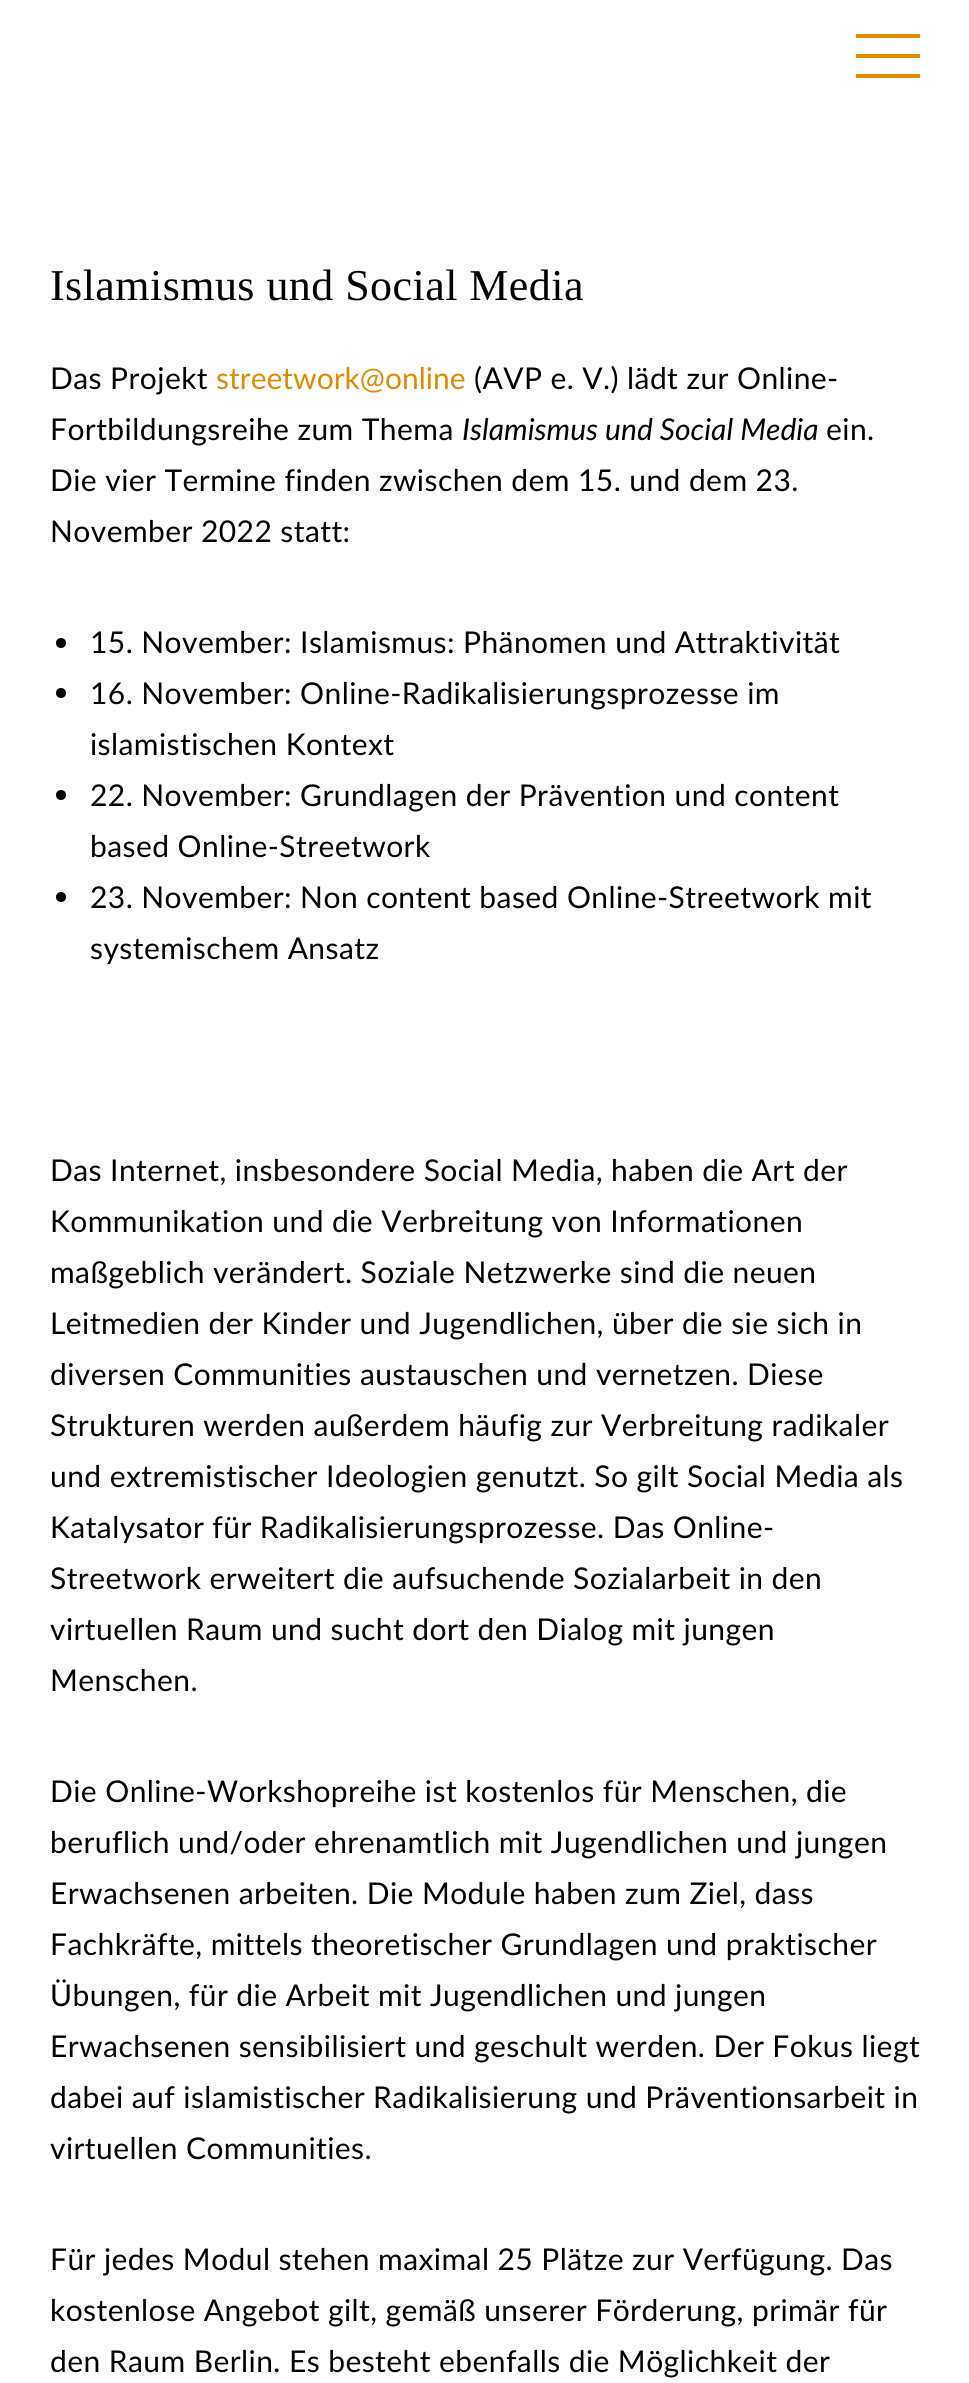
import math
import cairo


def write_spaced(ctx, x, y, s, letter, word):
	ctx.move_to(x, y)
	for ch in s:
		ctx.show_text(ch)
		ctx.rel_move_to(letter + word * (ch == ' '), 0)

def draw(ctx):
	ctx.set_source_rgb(1, 1, 1)
	ctx.paint()
	ctx.set_source_rgb(0.882, 0.549, 0)
	ctx.rectangle(856, 34, 64, 4)
	ctx.rectangle(856, 54, 64, 4)
	ctx.rectangle(856, 74, 64, 4)
	ctx.fill()
	ctx.select_font_face('Liberation Serif')
	ctx.set_font_size(44)
	ctx.set_source_rgb(0, 0, 0)
	write_spaced(ctx, 50, 300, 'Islamismus und Social Media', 0.45, 0)
	ctx.select_font_face('Lato')
	ctx.set_font_size(30)
	write_spaced(ctx, 50, 389, 'Das Projekt', 0.42, 0)
	ctx.set_source_rgb(0.882, 0.549, 0)
	ctx.move_to(216, 389)
	ctx.show_text('streetwork@online')
	ctx.set_source_rgb(0, 0, 0)
	write_spaced(ctx, 474, 389, '(AVP e. V.) lädt zur Online-', 0.42, 0)
	write_spaced(ctx, 50, 440, 'Fortbildungsreihe zum Thema', 0.42, 0)
	ctx.select_font_face('Lato', cairo.FONT_SLANT_ITALIC)
	ctx.move_to(462, 440)
	ctx.show_text('Islamismus und Social Media')
	ctx.select_font_face('Lato')
	for x, y, s in [
		(826, 440, 'ein.'),
		(50, 491, 'Die vier Termine finden zwischen dem 15. und dem 23.'),
		(50, 542, 'November 2022 statt:'),
	]:
		write_spaced(ctx, x, y, s, 0.42, 0)
	ctx.new_path()
	ctx.arc(61, 643, 5, 0, 2 * math.pi)
	ctx.fill()
	write_spaced(ctx, 90, 653, '15. November: Islamismus: Phänomen und Attraktivität', 0.42, 0)
	ctx.new_path()
	ctx.arc(61, 693, 5, 0, 2 * math.pi)
	ctx.fill()
	write_spaced(ctx, 90, 704, '16. November: Online-Radikalisierungsprozesse im', 0.42, 0)
	write_spaced(ctx, 90, 755, 'islamistischen Kontext', 0.42, 0)
	ctx.new_path()
	ctx.arc(61, 795, 5, 0, 2 * math.pi)
	ctx.fill()
	write_spaced(ctx, 90, 806, '22. November: Grundlagen der Prävention und content', 0.42, 0)
	write_spaced(ctx, 90, 857, 'based Online-Streetwork', 0.42, 0)
	ctx.new_path()
	ctx.arc(61, 897, 5, 0, 2 * math.pi)
	ctx.fill()
	for x, y, s in [
		(90, 908, '23. November: Non content based Online-Streetwork mit'),
		(90, 959, 'systemischem Ansatz'),
		(50, 1181, 'Das Internet, insbesondere Social Media, haben die Art der'),
		(50, 1232, 'Kommunikation und die Verbreitung von Informationen'),
		(50, 1283, 'maßgeblich verändert. Soziale Netzwerke sind die neuen'),
		(50, 1334, 'Leitmedien der Kinder und Jugendlichen, über die sie sich in'),
		(50, 1385, 'diversen Communities austauschen und vernetzen. Diese'),
		(50, 1436, 'Strukturen werden außerdem häufig zur Verbreitung radikaler'),
		(50, 1487, 'und extremistischer Ideologien genutzt. So gilt Social Media als'),
		(50, 1538, 'Katalysator für Radikalisierungsprozesse. Das Online-'),
		(50, 1589, 'Streetwork erweitert die aufsuchende Sozialarbeit in den'),
		(50, 1640, 'virtuellen Raum und sucht dort den Dialog mit jungen'),
		(50, 1691, 'Menschen.'),
		(50, 1802, 'Die Online-Workshopreihe ist kostenlos für Menschen, die'),
		(50, 1853, 'beruflich und/oder ehrenamtlich mit Jugendlichen und jungen'),
		(50, 1904, 'Erwachsenen arbeiten. Die Module haben zum Ziel, dass'),
		(50, 1955, 'Fachkräfte, mittels theoretischer Grundlagen und praktischer'),
		(50, 2006, 'Übungen, für die Arbeit mit Jugendlichen und jungen'),
		(50, 2057, 'Erwachsenen sensibilisiert und geschult werden. Der Fokus liegt'),
		(50, 2108, 'dabei auf islamistischer Radikalisierung und Präventionsarbeit in'),
		(50, 2159, 'virtuellen Communities.'),
		(50, 2270, 'Für jedes Modul stehen maximal 25 Plätze zur Verfügung. Das'),
		(50, 2321, 'kostenlose Angebot gilt, gemäß unserer Förderung, primär für'),
		(50, 2372, 'den Raum Berlin. Es besteht ebenfalls die Möglichkeit der'),
	]:
		write_spaced(ctx, x, y, s, 0.42, 0)


surface = cairo.ImageSurface(cairo.FORMAT_RGB24, 969, 2383)
ctx = cairo.Context(surface)
options = cairo.FontOptions()
options.set_hint_metrics(cairo.HINT_METRICS_OFF)
options.set_hint_style(cairo.HINT_STYLE_NONE)
ctx.set_font_options(options)
ctx.set_miter_limit(4)
draw(ctx)
surface.write_to_png('image.png')
